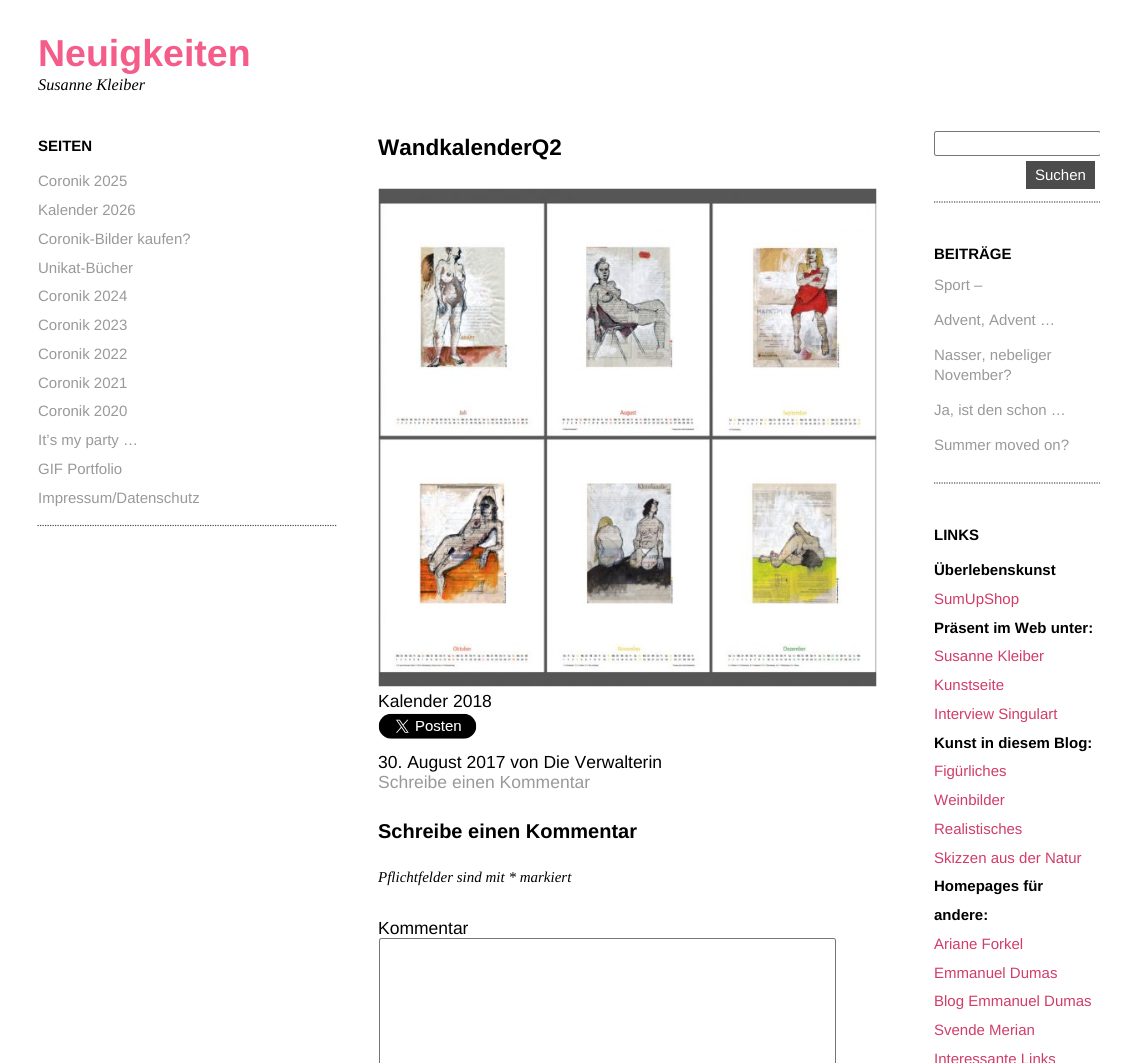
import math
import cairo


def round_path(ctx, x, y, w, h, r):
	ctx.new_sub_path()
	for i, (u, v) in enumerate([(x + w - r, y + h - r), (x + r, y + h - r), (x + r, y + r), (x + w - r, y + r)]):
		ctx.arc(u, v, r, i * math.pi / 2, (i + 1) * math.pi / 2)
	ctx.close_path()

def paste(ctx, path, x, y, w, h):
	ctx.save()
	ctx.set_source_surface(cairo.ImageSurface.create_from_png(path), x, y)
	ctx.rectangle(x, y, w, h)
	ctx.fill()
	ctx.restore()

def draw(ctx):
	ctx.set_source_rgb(1, 1, 1)
	ctx.paint()
	ctx.select_font_face('Liberation Sans', cairo.FONT_SLANT_NORMAL, cairo.FONT_WEIGHT_BOLD)
	ctx.set_font_size(37.5)
	ctx.set_source_rgb(0.957, 0.365, 0.541)
	ctx.move_to(38, 66)
	ctx.show_text('Neuigkeiten')
	ctx.select_font_face('Liberation Serif', cairo.FONT_SLANT_ITALIC)
	ctx.set_font_size(16.25)
	ctx.set_source_rgb(0, 0, 0)
	ctx.move_to(38, 90)
	ctx.show_text('Susanne Kleiber')
	ctx.new_path()
	ctx.move_to(37.5, 525.5)
	ctx.line_to(337.5, 525.5)
	ctx.set_source_rgb(0.298, 0.298, 0.298)
	ctx.set_line_width(1.2)
	ctx.set_dash([1.25, 1.25])
	ctx.stroke()
	ctx.select_font_face('Liberation Sans', cairo.FONT_SLANT_NORMAL, cairo.FONT_WEIGHT_BOLD)
	ctx.set_font_size(15)
	ctx.set_source_rgb(0, 0, 0)
	ctx.move_to(38, 151)
	ctx.show_text('SEITEN')
	ctx.select_font_face('Liberation Sans')
	ctx.set_source_rgb(0.6, 0.6, 0.6)
	for x, y, s in [
		(38, 186, 'Coronik 2025'),
		(38, 215, 'Kalender 2026'),
		(38, 244, 'Coronik-Bilder kaufen?'),
		(38, 273, 'Unikat-Bücher'),
		(38, 301, 'Coronik 2024'),
		(38, 330, 'Coronik 2023'),
		(38, 359, 'Coronik 2022'),
		(38, 388, 'Coronik 2021'),
		(38, 416, 'Coronik 2020'),
		(38, 445, 'It’s my party …'),
		(38, 474, 'GIF Portfolio'),
		(38, 503, 'Impressum/Datenschutz'),
	]:
		ctx.move_to(x, y)
		ctx.show_text(s)
	ctx.select_font_face('Liberation Sans', cairo.FONT_SLANT_NORMAL, cairo.FONT_WEIGHT_BOLD)
	ctx.set_font_size(22.5)
	ctx.set_source_rgb(0, 0, 0)
	ctx.move_to(378, 155)
	ctx.show_text('WandkalenderQ2')
	paste(ctx, 'media/1.png', 378, 188, 499, 499)
	ctx.select_font_face('Liberation Sans')
	ctx.set_font_size(17.5)
	ctx.move_to(378, 707)
	ctx.show_text('Kalender 2018')
	paste(ctx, 'media/2.png', 378, 713, 99, 26)
	ctx.move_to(378, 768)
	ctx.show_text('30. August 2017 von Die Verwalterin')
	ctx.set_source_rgb(0.6, 0.6, 0.6)
	ctx.move_to(378, 788)
	ctx.show_text('Schreibe einen Kommentar')
	ctx.select_font_face('Liberation Sans', cairo.FONT_SLANT_NORMAL, cairo.FONT_WEIGHT_BOLD)
	ctx.set_font_size(20)
	ctx.set_source_rgb(0, 0, 0)
	ctx.move_to(378, 838)
	ctx.show_text('Schreibe einen Kommentar')
	ctx.select_font_face('Liberation Serif', cairo.FONT_SLANT_ITALIC)
	ctx.set_font_size(15)
	ctx.move_to(378, 882)
	ctx.show_text('Pflichtfelder sind mit * markiert')
	ctx.select_font_face('Liberation Sans')
	ctx.set_font_size(17.5)
	ctx.move_to(378, 934)
	ctx.show_text('Kommentar')
	round_path(ctx, 379.5, 938.5, 456, 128, 2)
	ctx.set_source_rgb(0.463, 0.463, 0.463)
	ctx.set_line_width(1)
	ctx.set_dash([])
	ctx.stroke()
	ctx.new_path()
	ctx.move_to(934, 202)
	ctx.line_to(1100, 202)
	ctx.set_source_rgb(0.298, 0.298, 0.298)
	ctx.set_line_width(1.2)
	ctx.set_dash([1.25, 1.25])
	ctx.stroke()
	ctx.save()
	ctx.rectangle(934, 131, 166, 70)
	ctx.clip()
	round_path(ctx, 934.5, 131.5, 166, 24, 2)
	ctx.set_source_rgb(0.463, 0.463, 0.463)
	ctx.set_line_width(1)
	ctx.set_dash([])
	ctx.stroke()
	ctx.restore()
	ctx.rectangle(1026, 161, 69, 28)
	ctx.fill()
	ctx.set_font_size(15)
	ctx.set_source_rgb(1, 1, 1)
	ctx.move_to(1035, 180)
	ctx.show_text('Suchen')
	ctx.new_path()
	ctx.move_to(934, 483)
	ctx.line_to(1100, 483)
	ctx.set_source_rgb(0.298, 0.298, 0.298)
	ctx.stroke()
	ctx.select_font_face('Liberation Sans', cairo.FONT_SLANT_NORMAL, cairo.FONT_WEIGHT_BOLD)
	ctx.set_source_rgb(0, 0, 0)
	ctx.move_to(934, 259)
	ctx.show_text('BEITRÄGE')
	ctx.select_font_face('Liberation Sans')
	ctx.set_source_rgb(0.6, 0.6, 0.6)
	for x, y, s in [
		(934, 290, 'Sport –'),
		(934, 325, 'Advent, Advent …'),
		(934, 360, 'Nasser, nebeliger'),
		(934, 380, 'November?'),
		(934, 415, 'Ja, ist den schon …'),
		(934, 450, 'Summer moved on?'),
	]:
		ctx.move_to(x, y)
		ctx.show_text(s)
	ctx.select_font_face('Liberation Sans', cairo.FONT_SLANT_NORMAL, cairo.FONT_WEIGHT_BOLD)
	ctx.set_source_rgb(0, 0, 0)
	ctx.move_to(934, 540)
	ctx.show_text('LINKS')
	ctx.move_to(934, 575)
	ctx.show_text('Überlebenskunst')
	ctx.select_font_face('Liberation Sans')
	ctx.set_source_rgb(0.82, 0.235, 0.412)
	ctx.move_to(934, 604)
	ctx.show_text('SumUpShop')
	ctx.select_font_face('Liberation Sans', cairo.FONT_SLANT_NORMAL, cairo.FONT_WEIGHT_BOLD)
	ctx.set_source_rgb(0, 0, 0)
	ctx.move_to(934, 633)
	ctx.show_text('Präsent im Web unter:')
	ctx.select_font_face('Liberation Sans')
	ctx.set_source_rgb(0.82, 0.235, 0.412)
	for x, y, s in [
		(934, 661, 'Susanne Kleiber'),
		(934, 690, 'Kunstseite'),
		(934, 719, 'Interview Singulart'),
	]:
		ctx.move_to(x, y)
		ctx.show_text(s)
	ctx.select_font_face('Liberation Sans', cairo.FONT_SLANT_NORMAL, cairo.FONT_WEIGHT_BOLD)
	ctx.set_source_rgb(0, 0, 0)
	ctx.move_to(934, 748)
	ctx.show_text('Kunst in diesem Blog:')
	ctx.select_font_face('Liberation Sans')
	ctx.set_source_rgb(0.82, 0.235, 0.412)
	for x, y, s in [
		(934, 776, 'Figürliches'),
		(934, 805, 'Weinbilder'),
		(934, 834, 'Realistisches'),
		(934, 863, 'Skizzen aus der Natur'),
	]:
		ctx.move_to(x, y)
		ctx.show_text(s)
	ctx.select_font_face('Liberation Sans', cairo.FONT_SLANT_NORMAL, cairo.FONT_WEIGHT_BOLD)
	ctx.set_source_rgb(0, 0, 0)
	ctx.move_to(934, 891)
	ctx.show_text('Homepages für')
	ctx.move_to(934, 920)
	ctx.show_text('andere:')
	ctx.select_font_face('Liberation Sans')
	ctx.set_source_rgb(0.82, 0.235, 0.412)
	for x, y, s in [
		(934, 949, 'Ariane Forkel'),
		(934, 978, 'Emmanuel Dumas'),
		(934, 1006, 'Blog Emmanuel Dumas'),
		(934, 1035, 'Svende Merian'),
		(934, 1064, 'Interessante Links'),
	]:
		ctx.move_to(x, y)
		ctx.show_text(s)


surface = cairo.ImageSurface(cairo.FORMAT_RGB24, 1137, 1063)
ctx = cairo.Context(surface)
options = cairo.FontOptions()
options.set_hint_metrics(cairo.HINT_METRICS_OFF)
options.set_hint_style(cairo.HINT_STYLE_NONE)
ctx.set_font_options(options)
ctx.set_miter_limit(4)
draw(ctx)
surface.write_to_png('image.png')
